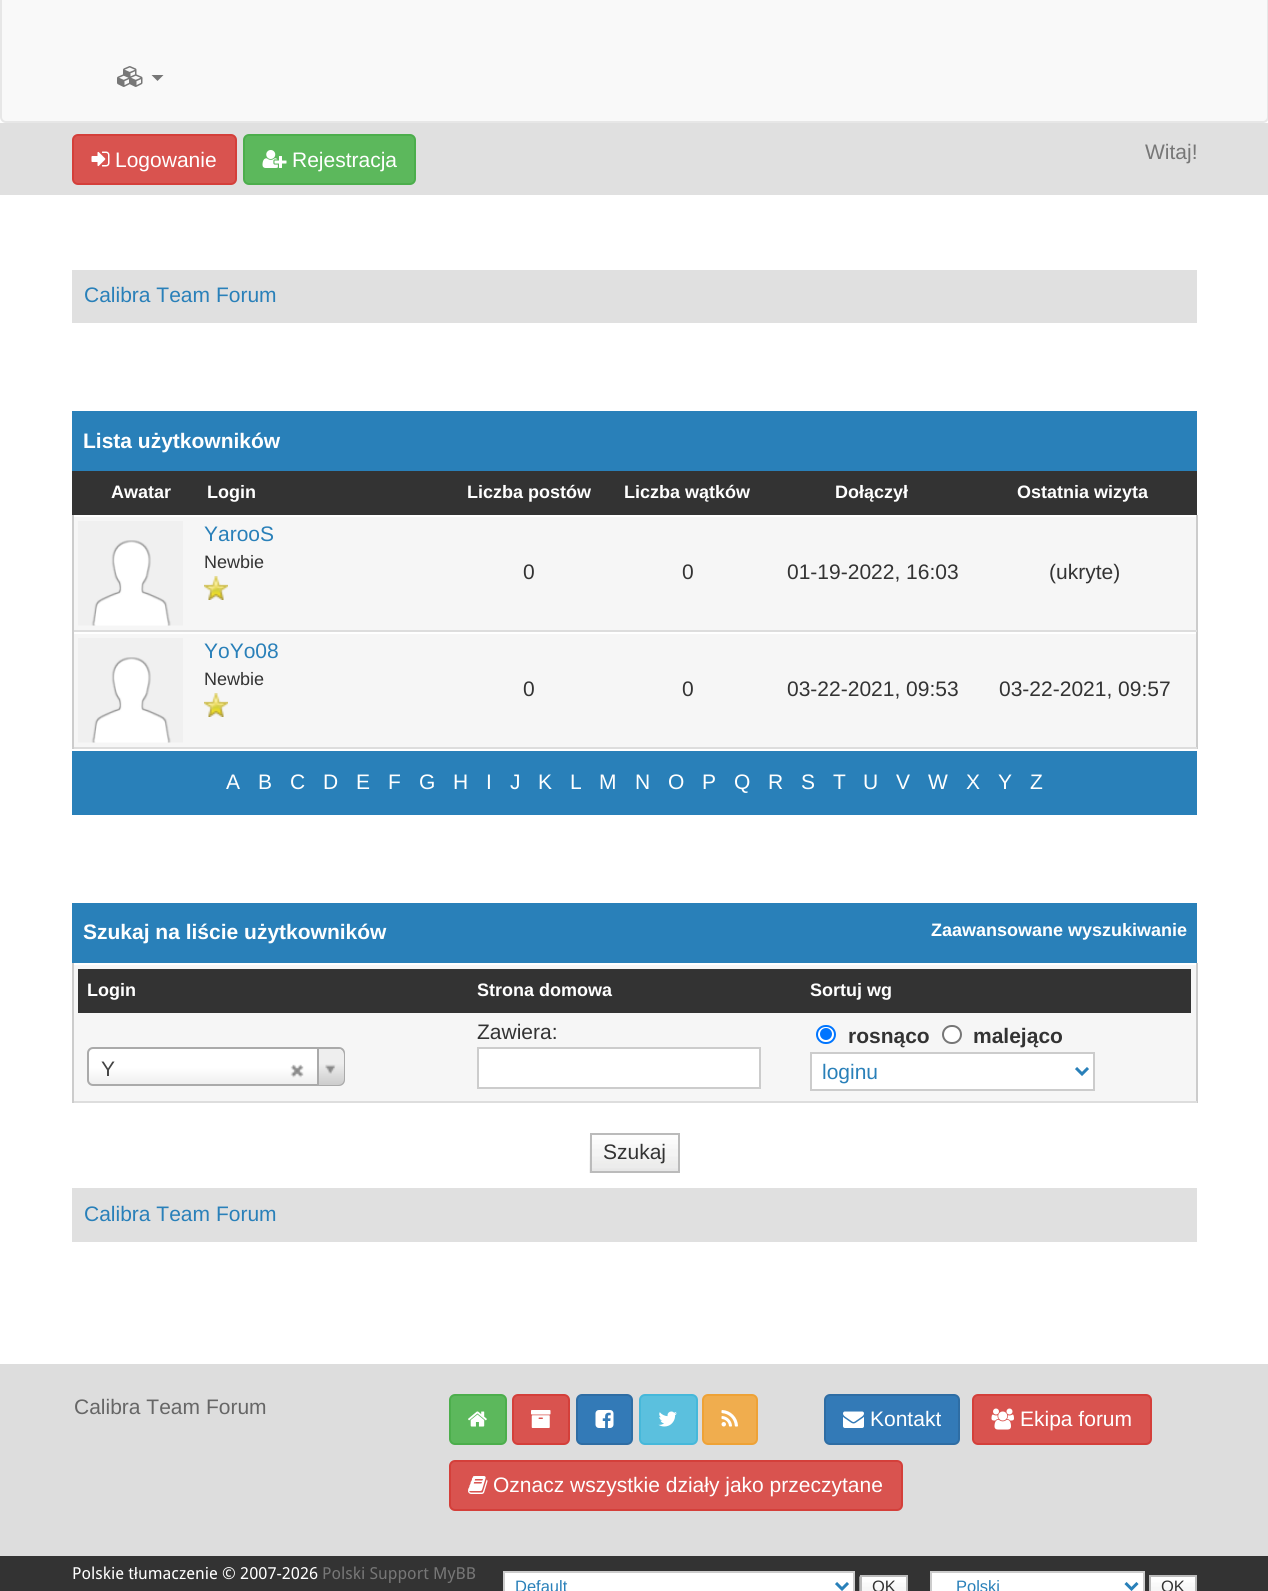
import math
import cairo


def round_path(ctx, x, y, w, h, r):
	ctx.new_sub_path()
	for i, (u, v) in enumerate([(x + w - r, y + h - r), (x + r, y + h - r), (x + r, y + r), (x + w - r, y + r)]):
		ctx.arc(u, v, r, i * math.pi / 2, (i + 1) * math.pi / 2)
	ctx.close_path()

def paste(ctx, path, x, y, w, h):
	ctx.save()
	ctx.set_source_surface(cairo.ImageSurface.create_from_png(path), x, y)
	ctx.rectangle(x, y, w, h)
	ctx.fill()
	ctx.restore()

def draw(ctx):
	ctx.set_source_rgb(1, 1, 1)
	ctx.paint()
	ctx.set_source_rgb(0.973, 0.973, 0.973)
	round_path(ctx, 1, -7, 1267, 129, 5)
	ctx.fill_preserve()
	ctx.set_source_rgb(0.906, 0.906, 0.906)
	ctx.stroke()
	paste(ctx, 'media/1.png', 117, 66, 26, 21)
	ctx.set_source_rgb(0.467, 0.467, 0.467)
	ctx.new_path()
	ctx.move_to(151.5, 75)
	ctx.line_to(163.5, 75)
	ctx.line_to(157.5, 81)
	ctx.close_path()
	ctx.fill()
	ctx.set_source_rgb(0.878, 0.878, 0.878)
	ctx.rectangle(0, 123, 1268, 72)
	ctx.fill()
	ctx.set_source_rgb(0.851, 0.325, 0.31)
	round_path(ctx, 73, 135, 163, 49, 5)
	ctx.fill_preserve()
	ctx.set_source_rgb(0.831, 0.247, 0.227)
	ctx.stroke()
	paste(ctx, 'media/2.png', 91, 151, 19, 16)
	ctx.select_font_face('Liberation Sans')
	ctx.set_font_size(21)
	ctx.set_source_rgb(1, 1, 1)
	ctx.move_to(115, 167)
	ctx.show_text('Logowanie')
	ctx.set_source_rgb(0.361, 0.722, 0.361)
	round_path(ctx, 244, 135, 171, 49, 5)
	ctx.fill_preserve()
	ctx.set_source_rgb(0.298, 0.682, 0.298)
	ctx.stroke()
	paste(ctx, 'media/3.png', 262, 150, 25, 18)
	ctx.set_source_rgb(1, 1, 1)
	ctx.move_to(292, 167)
	ctx.show_text('Rejestracja')
	ctx.set_source_rgb(0.467, 0.467, 0.467)
	ctx.move_to(1145, 159)
	ctx.show_text('Witaj!')
	ctx.set_source_rgb(0.878, 0.878, 0.878)
	ctx.rectangle(72, 270, 1125, 53)
	ctx.fill()
	ctx.set_source_rgb(0.161, 0.502, 0.725)
	ctx.move_to(84, 302)
	ctx.show_text('Calibra Team Forum')
	ctx.rectangle(72, 411, 1125, 60)
	ctx.fill()
	ctx.select_font_face('Liberation Sans', cairo.FONT_SLANT_NORMAL, cairo.FONT_WEIGHT_BOLD)
	ctx.set_source_rgb(1, 1, 1)
	ctx.move_to(83, 448)
	ctx.show_text('Lista użytkowników')
	ctx.set_source_rgb(0.2, 0.2, 0.2)
	ctx.rectangle(72, 471, 1125, 44)
	ctx.fill()
	ctx.set_font_size(18)
	ctx.set_source_rgb(1, 1, 1)
	for x, y, s in [
		(111, 498, 'Awatar'),
		(207, 498, 'Login'),
		(467, 498, 'Liczba postów'),
		(624, 498, 'Liczba wątków'),
		(835, 498, 'Dołączył'),
		(1017, 498, 'Ostatnia wizyta'),
	]:
		ctx.move_to(x, y)
		ctx.show_text(s)
	ctx.set_source_rgb(0.961, 0.961, 0.961)
	ctx.rectangle(74, 517, 1122, 113)
	ctx.fill()
	ctx.set_source_rgb(0.8, 0.8, 0.8)
	ctx.rectangle(1196, 515, 2, 234)
	ctx.fill()
	ctx.set_source_rgb(0.867, 0.867, 0.867)
	ctx.rectangle(72, 630, 1125, 2)
	ctx.fill()
	ctx.set_source_rgb(0.8, 0.8, 0.8)
	ctx.rectangle(72, 515, 2, 117)
	ctx.fill()
	paste(ctx, 'media/4.png', 78, 521, 105, 105)
	ctx.select_font_face('Liberation Sans')
	ctx.set_font_size(21)
	ctx.set_source_rgb(0.161, 0.502, 0.725)
	ctx.move_to(204, 541)
	ctx.show_text('YarooS')
	ctx.set_font_size(18)
	ctx.set_source_rgb(0.2, 0.2, 0.2)
	ctx.move_to(204, 568)
	ctx.show_text('Newbie')
	paste(ctx, 'media/5.png', 204, 576, 24, 24)
	ctx.set_font_size(21)
	for x, y, s in [
		(523, 579, '0'),
		(682, 579, '0'),
		(787, 579, '01-19-2022, 16:03'),
		(1049, 579, '(ukryte)'),
	]:
		ctx.move_to(x, y)
		ctx.show_text(s)
	ctx.set_source_rgb(0.961, 0.961, 0.961)
	ctx.rectangle(74, 634, 1122, 113)
	ctx.fill()
	ctx.set_source_rgb(0.867, 0.867, 0.867)
	ctx.rectangle(72, 747, 1125, 2)
	ctx.fill()
	ctx.set_source_rgb(0.8, 0.8, 0.8)
	ctx.rectangle(72, 632, 2, 117)
	ctx.fill()
	paste(ctx, 'media/4.png', 78, 638, 105, 105)
	ctx.set_source_rgb(0.161, 0.502, 0.725)
	ctx.move_to(204, 658)
	ctx.show_text('YoYo08')
	ctx.set_font_size(18)
	ctx.set_source_rgb(0.2, 0.2, 0.2)
	ctx.move_to(204, 685)
	ctx.show_text('Newbie')
	paste(ctx, 'media/5.png', 204, 693, 24, 24)
	ctx.set_font_size(21)
	for x, y, s in [
		(523, 696, '0'),
		(682, 696, '0'),
		(787, 696, '03-22-2021, 09:53'),
		(999, 696, '03-22-2021, 09:57'),
	]:
		ctx.move_to(x, y)
		ctx.show_text(s)
	ctx.set_source_rgb(0.161, 0.502, 0.725)
	ctx.rectangle(72, 751, 1125, 64)
	ctx.fill()
	ctx.set_source_rgb(1, 1, 1)
	for x, y, s in [
		(226, 789, 'A'),
		(258, 789, 'B'),
		(290, 789, 'C'),
		(323, 789, 'D'),
		(356, 789, 'E'),
		(388, 789, 'F'),
		(419, 789, 'G'),
		(453, 789, 'H'),
		(486, 789, 'I'),
		(510, 789, 'J'),
		(538, 789, 'K'),
		(570, 789, 'L'),
		(599, 789, 'M'),
		(635, 789, 'N'),
		(668, 789, 'O'),
		(702, 789, 'P'),
		(734, 789, 'Q'),
		(768, 789, 'R'),
		(801, 789, 'S'),
		(833, 789, 'T'),
		(863, 789, 'U'),
		(896, 789, 'V'),
		(928, 789, 'W'),
		(966, 789, 'X'),
		(998, 789, 'Y'),
		(1030, 789, 'Z'),
	]:
		ctx.move_to(x, y)
		ctx.show_text(s)
	ctx.set_source_rgb(0.161, 0.502, 0.725)
	ctx.rectangle(72, 903, 1125, 60)
	ctx.fill()
	ctx.select_font_face('Liberation Sans', cairo.FONT_SLANT_NORMAL, cairo.FONT_WEIGHT_BOLD)
	ctx.set_source_rgb(1, 1, 1)
	ctx.move_to(83, 939)
	ctx.show_text('Szukaj na liście użytkowników')
	ctx.set_font_size(18)
	ctx.move_to(931, 936)
	ctx.show_text('Zaawansowane wyszukiwanie')
	ctx.set_source_rgb(0.961, 0.961, 0.961)
	ctx.rectangle(74, 965, 1122, 136)
	ctx.fill()
	ctx.set_source_rgb(0.8, 0.8, 0.8)
	ctx.rectangle(1196, 963, 2, 140)
	ctx.fill()
	ctx.set_source_rgb(0.867, 0.867, 0.867)
	ctx.rectangle(72, 1101, 1125, 2)
	ctx.fill()
	ctx.set_source_rgb(0.8, 0.8, 0.8)
	ctx.rectangle(72, 963, 2, 140)
	ctx.fill()
	ctx.set_source_rgb(0.2, 0.2, 0.2)
	ctx.rectangle(78, 969, 1113, 44)
	ctx.fill()
	ctx.set_source_rgb(1, 1, 1)
	ctx.move_to(87, 996)
	ctx.show_text('Login')
	gradient = cairo.LinearGradient(216, 1085, 216, 1049)
	gradient.add_color_stop_rgba(0, 0.933, 0.933, 0.933, 1)
	gradient.add_color_stop_rgba(0.5, 1, 1, 1, 1)
	ctx.set_source(gradient)
	round_path(ctx, 89, 1049, 255, 36, 5)
	ctx.fill()
	round_path(ctx, 88, 1048, 256, 37, 5)
	ctx.set_source_rgb(0.667, 0.667, 0.667)
	ctx.stroke()
	ctx.select_font_face('Liberation Sans')
	ctx.set_font_size(21)
	ctx.set_source_rgb(0.267, 0.267, 0.267)
	ctx.move_to(101, 1076)
	ctx.show_text('Y')
	paste(ctx, 'media/6.png', 290, 1064, 14, 14)
	ctx.save()
	round_path(ctx, 89, 1049, 255, 36, 5)
	ctx.clip()
	gradient = cairo.LinearGradient(331, 1085, 331, 1049)
	gradient.add_color_stop_rgba(0, 0.8, 0.8, 0.8, 1)
	gradient.add_color_stop_rgba(0.6, 0.933, 0.933, 0.933, 1)
	ctx.set_source(gradient)
	ctx.new_path()
	ctx.move_to(317, 1049)
	ctx.line_to(338, 1049)
	ctx.curve_to(341.5, 1049, 344, 1051.5, 344, 1055)
	ctx.line_to(344, 1079)
	ctx.curve_to(344, 1082.5, 341.5, 1085, 338, 1085)
	ctx.line_to(317, 1085)
	ctx.close_path()
	ctx.fill()
	ctx.restore()
	ctx.set_source_rgb(0.667, 0.667, 0.667)
	ctx.rectangle(317, 1049, 2, 36)
	ctx.fill()
	paste(ctx, 'media/7.png', 325, 1064, 11, 10)
	ctx.select_font_face('Liberation Sans', cairo.FONT_SLANT_NORMAL, cairo.FONT_WEIGHT_BOLD)
	ctx.set_font_size(18)
	ctx.set_source_rgb(1, 1, 1)
	ctx.move_to(477, 996)
	ctx.show_text('Strona domowa')
	ctx.select_font_face('Liberation Sans')
	ctx.set_font_size(21)
	ctx.set_source_rgb(0.2, 0.2, 0.2)
	ctx.move_to(477, 1039)
	ctx.show_text('Zawiera:')
	ctx.set_source_rgb(1, 1, 1)
	ctx.rectangle(478, 1048, 282, 40)
	ctx.fill_preserve()
	ctx.set_source_rgb(0.8, 0.8, 0.8)
	ctx.stroke()
	ctx.select_font_face('Liberation Sans', cairo.FONT_SLANT_NORMAL, cairo.FONT_WEIGHT_BOLD)
	ctx.set_font_size(18)
	ctx.set_source_rgb(1, 1, 1)
	ctx.move_to(810, 996)
	ctx.show_text('Sortuj wg')
	round_path(ctx, 817, 1026, 18, 17, 8.5)
	ctx.fill_preserve()
	ctx.set_source_rgb(0, 0.459, 1)
	ctx.stroke()
	ctx.arc(826, 1034, 6, 0, 2 * math.pi)
	ctx.fill()
	ctx.set_font_size(21)
	ctx.set_source_rgb(0.2, 0.2, 0.2)
	ctx.move_to(848, 1043)
	ctx.show_text('rosnąco')
	ctx.set_source_rgb(1, 1, 1)
	round_path(ctx, 943, 1026, 18, 17, 8.5)
	ctx.fill_preserve()
	ctx.set_source_rgb(0.463, 0.463, 0.463)
	ctx.stroke()
	ctx.set_source_rgb(0.2, 0.2, 0.2)
	ctx.move_to(973, 1043)
	ctx.show_text('malejąco')
	ctx.set_source_rgb(1, 1, 1)
	ctx.rectangle(811, 1053, 283, 37)
	ctx.fill_preserve()
	ctx.set_source_rgb(0.8, 0.8, 0.8)
	ctx.stroke()
	ctx.new_path()
	ctx.move_to(1076, 1068)
	ctx.line_to(1082, 1074)
	ctx.line_to(1088, 1068)
	ctx.set_source_rgb(0.161, 0.502, 0.725)
	ctx.set_line_width(3)
	ctx.stroke()
	ctx.select_font_face('Liberation Sans')
	ctx.move_to(822, 1079)
	ctx.show_text('loginu')
	paste(ctx, 'media/8.png', 589, 1134, 89, 39)
	ctx.rectangle(591, 1134, 88, 38)
	ctx.set_source_rgb(0.733, 0.733, 0.733)
	ctx.set_line_width(2)
	ctx.stroke()
	ctx.set_source_rgb(0.2, 0.2, 0.2)
	ctx.move_to(603, 1159)
	ctx.show_text('Szukaj')
	ctx.set_source_rgb(0.878, 0.878, 0.878)
	ctx.rectangle(72, 1188, 1125, 54)
	ctx.fill()
	ctx.set_source_rgb(0.161, 0.502, 0.725)
	ctx.move_to(84, 1221)
	ctx.show_text('Calibra Team Forum')
	ctx.set_source_rgb(0.867, 0.867, 0.867)
	ctx.rectangle(0, 1364, 1268, 192)
	ctx.fill()
	ctx.set_source_rgb(0.4, 0.4, 0.4)
	ctx.move_to(74, 1414)
	ctx.show_text('Calibra Team Forum')
	ctx.set_source_rgb(0.2, 0.478, 0.718)
	round_path(ctx, 825, 1395, 134, 49, 5)
	ctx.fill_preserve()
	ctx.set_source_rgb(0.18, 0.427, 0.643)
	ctx.stroke()
	paste(ctx, 'media/9.png', 843, 1411, 21, 17)
	ctx.set_source_rgb(1, 1, 1)
	ctx.move_to(870, 1426)
	ctx.show_text('Kontakt')
	ctx.set_source_rgb(0.851, 0.325, 0.31)
	round_path(ctx, 973, 1395, 178, 49, 5)
	ctx.fill_preserve()
	ctx.set_source_rgb(0.831, 0.247, 0.227)
	ctx.stroke()
	paste(ctx, 'media/10.png', 991, 1408, 23, 22)
	ctx.set_source_rgb(1, 1, 1)
	ctx.move_to(1020, 1426)
	ctx.show_text('Ekipa forum')
	ctx.set_source_rgb(0.361, 0.722, 0.361)
	round_path(ctx, 450, 1395, 56, 49, 5)
	ctx.fill_preserve()
	ctx.set_source_rgb(0.298, 0.682, 0.298)
	ctx.stroke()
	paste(ctx, 'media/11.png', 468, 1411, 19, 16)
	ctx.set_source_rgb(0.851, 0.325, 0.31)
	round_path(ctx, 513, 1395, 56, 49, 5)
	ctx.fill_preserve()
	ctx.set_source_rgb(0.831, 0.247, 0.227)
	ctx.stroke()
	paste(ctx, 'media/12.png', 531, 1410, 20, 18)
	ctx.set_source_rgb(0.2, 0.478, 0.718)
	round_path(ctx, 577, 1395, 55, 49, 5)
	ctx.fill_preserve()
	ctx.set_source_rgb(0.18, 0.427, 0.643)
	ctx.stroke()
	paste(ctx, 'media/13.png', 595, 1410, 19, 18)
	ctx.set_source_rgb(0.357, 0.753, 0.871)
	round_path(ctx, 640, 1395, 57, 49, 5)
	ctx.fill_preserve()
	ctx.set_source_rgb(0.275, 0.722, 0.855)
	ctx.stroke()
	paste(ctx, 'media/14.png', 658, 1411, 19, 16)
	ctx.set_source_rgb(0.941, 0.678, 0.306)
	round_path(ctx, 703, 1395, 54, 49, 5)
	ctx.fill_preserve()
	ctx.set_source_rgb(0.933, 0.635, 0.212)
	ctx.stroke()
	paste(ctx, 'media/15.png', 721, 1410, 17, 17)
	ctx.set_source_rgb(0.851, 0.325, 0.31)
	round_path(ctx, 450, 1461, 452, 49, 5)
	ctx.fill_preserve()
	ctx.set_source_rgb(0.831, 0.247, 0.227)
	ctx.stroke()
	paste(ctx, 'media/16.png', 468, 1476, 20, 18)
	ctx.set_source_rgb(1, 1, 1)
	ctx.move_to(493, 1492)
	ctx.show_text('Oznacz wszystkie działy jako przeczytane')
	ctx.set_source_rgb(0.2, 0.2, 0.2)
	ctx.rectangle(0, 1556, 1268, 35)
	ctx.fill()
	ctx.select_font_face('Droid Sans')
	ctx.set_font_size(16.5)
	ctx.set_source_rgb(1, 1, 1)
	ctx.move_to(72, 1579)
	ctx.show_text('Polskie t')
	ctx.select_font_face('Liberation Sans')
	ctx.move_to(134, 1579)
	ctx.show_text('ł')
	ctx.select_font_face('Droid Sans')
	ctx.move_to(138, 1579)
	ctx.show_text('umaczenie © 2007-2026')
	ctx.set_source_rgb(0.467, 0.467, 0.467)
	ctx.move_to(322, 1579)
	ctx.show_text('Polski Support MyBB')
	ctx.set_source_rgb(1, 1, 1)
	ctx.rectangle(504, 1572, 350, 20)
	ctx.fill_preserve()
	ctx.set_source_rgb(0.8, 0.8, 0.8)
	ctx.stroke()
	ctx.new_path()
	ctx.move_to(836, 1583)
	ctx.line_to(842, 1589)
	ctx.line_to(848, 1583)
	ctx.set_source_rgb(0.161, 0.502, 0.725)
	ctx.set_line_width(3)
	ctx.stroke()
	ctx.select_font_face('Liberation Sans')
	ctx.move_to(515, 1592)
	ctx.show_text('Default')
	paste(ctx, 'media/17.png', 859, 1576, 47, 15)
	ctx.rectangle(861, 1576, 46, 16)
	ctx.set_source_rgb(0.733, 0.733, 0.733)
	ctx.set_line_width(2)
	ctx.stroke()
	ctx.set_source_rgb(0.2, 0.2, 0.2)
	ctx.move_to(872, 1592)
	ctx.show_text('OK')
	ctx.set_source_rgb(1, 1, 1)
	ctx.rectangle(931, 1572, 213, 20)
	ctx.fill_preserve()
	ctx.set_source_rgb(0.8, 0.8, 0.8)
	ctx.stroke()
	ctx.new_path()
	ctx.move_to(1125.5, 1583)
	ctx.line_to(1131.5, 1589)
	ctx.line_to(1137.5, 1583)
	ctx.set_source_rgb(0.161, 0.502, 0.725)
	ctx.set_line_width(3)
	ctx.stroke()
	ctx.move_to(956, 1592)
	ctx.show_text('Polski')
	paste(ctx, 'media/18.png', 1151, 1577, 44, 14)
	ctx.rectangle(1150, 1576, 46, 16)
	ctx.set_source_rgb(0.733, 0.733, 0.733)
	ctx.set_line_width(2)
	ctx.stroke()
	ctx.set_source_rgb(0.2, 0.2, 0.2)
	ctx.move_to(1161, 1592)
	ctx.show_text('OK')


surface = cairo.ImageSurface(cairo.FORMAT_RGB24, 1268, 1591)
ctx = cairo.Context(surface)
options = cairo.FontOptions()
options.set_hint_metrics(cairo.HINT_METRICS_OFF)
options.set_hint_style(cairo.HINT_STYLE_NONE)
ctx.set_font_options(options)
ctx.set_miter_limit(4)
draw(ctx)
surface.write_to_png('image.png')
